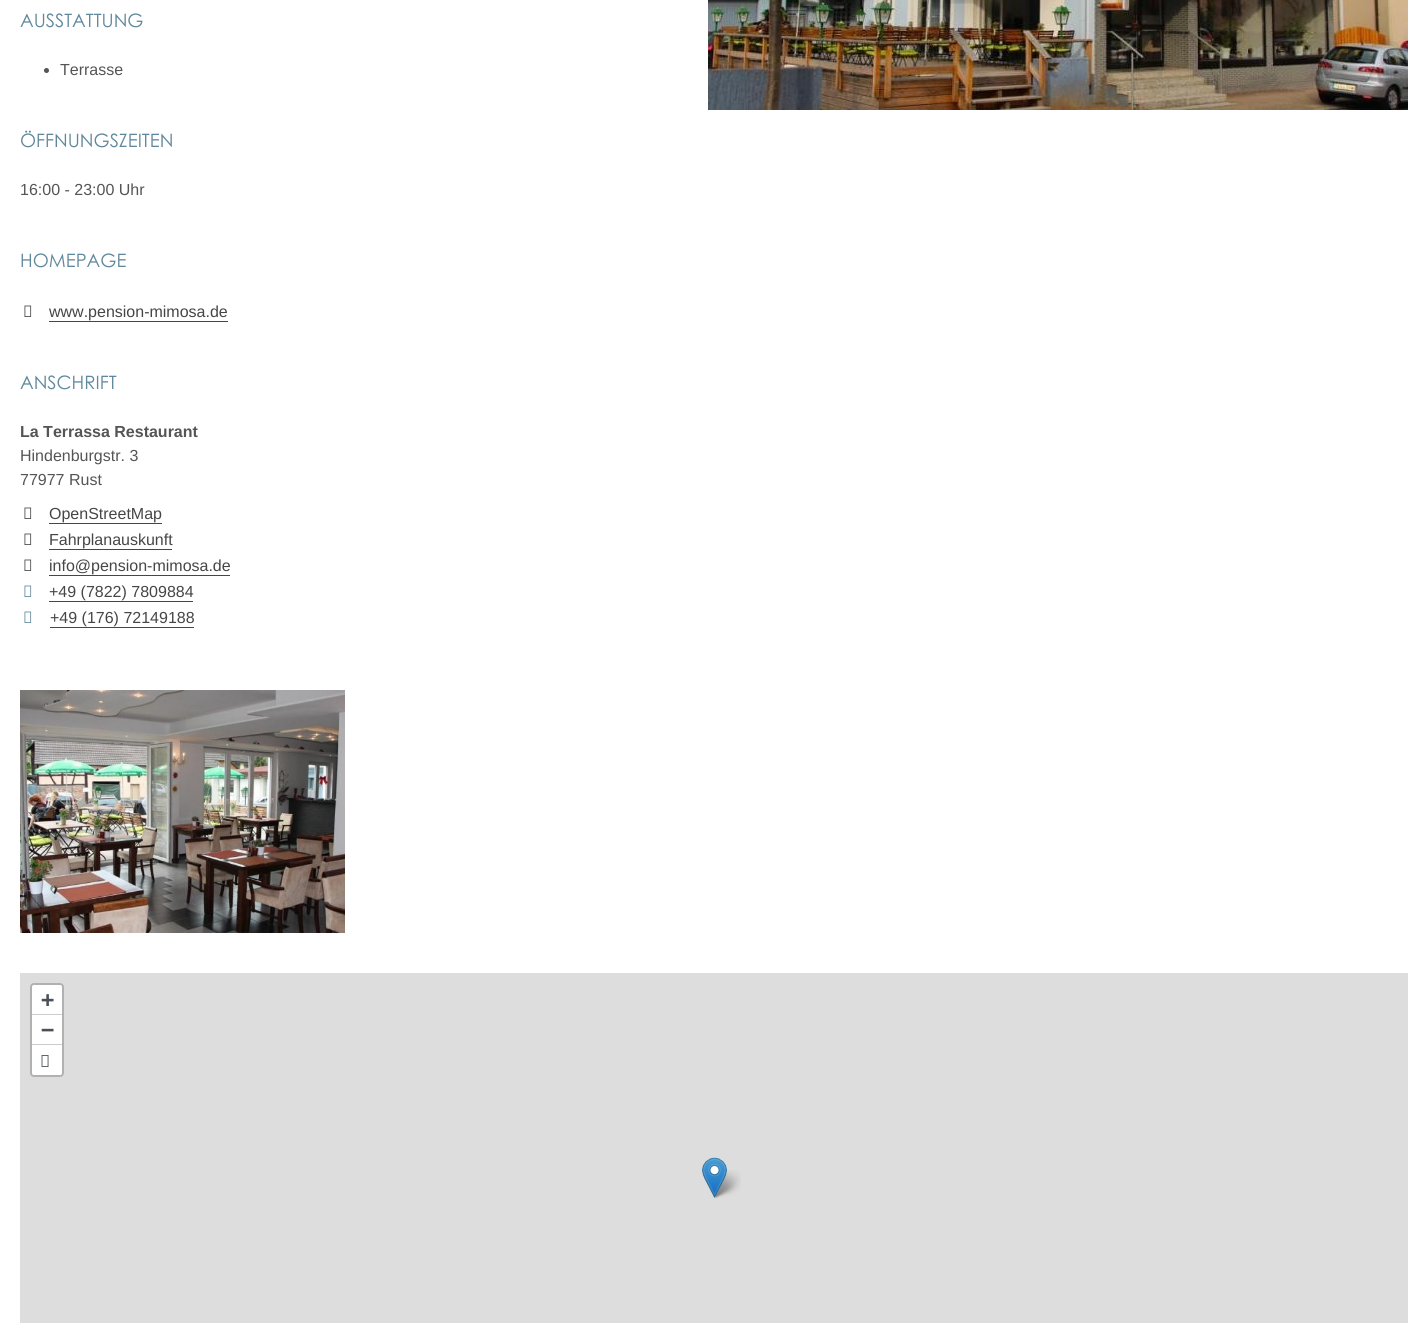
import math
import cairo


def round_path(ctx, x, y, w, h, r):
	ctx.new_sub_path()
	for i, (u, v) in enumerate([(x + w - r, y + h - r), (x + r, y + h - r), (x + r, y + r), (x + w - r, y + r)]):
		ctx.arc(u, v, r, i * math.pi / 2, (i + 1) * math.pi / 2)
	ctx.close_path()

def paste(ctx, path, x, y, w, h):
	ctx.save()
	ctx.set_source_surface(cairo.ImageSurface.create_from_png(path), x, y)
	ctx.rectangle(x, y, w, h)
	ctx.fill()
	ctx.restore()

def draw(ctx):
	ctx.set_source_rgb(1, 1, 1)
	ctx.paint()
	ctx.select_font_face('Century Gothic')
	ctx.set_font_size(18.5)
	ctx.set_source_rgb(0.376, 0.533, 0.612)
	ctx.move_to(20, 27)
	ctx.show_text('AUSSTATTUNG')
	ctx.set_source_rgb(0.333, 0.333, 0.333)
	ctx.new_path()
	ctx.arc(46.5, 70.5, 2.5, 0, 2 * math.pi)
	ctx.fill()
	ctx.select_font_face('Liberation Sans')
	ctx.set_font_size(16)
	ctx.move_to(60, 75)
	ctx.show_text('Terrasse')
	paste(ctx, 'media/1.png', 708, 0, 700, 110)
	ctx.select_font_face('Century Gothic')
	ctx.set_font_size(18.5)
	ctx.set_source_rgb(0.376, 0.533, 0.612)
	ctx.move_to(20, 147)
	ctx.show_text('ÖFFNUNGSZEITEN')
	ctx.select_font_face('Liberation Sans')
	ctx.set_font_size(16)
	ctx.set_source_rgb(0.333, 0.333, 0.333)
	ctx.move_to(20, 195)
	ctx.show_text('16:00 - 23:00 Uhr')
	ctx.select_font_face('Century Gothic')
	ctx.set_font_size(18.5)
	ctx.set_source_rgb(0.376, 0.533, 0.612)
	ctx.move_to(20, 267)
	ctx.show_text('HOMEPAGE')
	paste(ctx, 'media/2.png', 24, 305, 8, 12)
	ctx.select_font_face('Liberation Sans')
	ctx.set_font_size(16)
	ctx.set_source_rgb(0.275, 0.275, 0.282)
	ctx.move_to(49, 317)
	ctx.show_text('www.pension-mimosa.de')
	ctx.rectangle(49, 321, 179, 1)
	ctx.fill()
	ctx.select_font_face('Century Gothic')
	ctx.set_font_size(18.5)
	ctx.set_source_rgb(0.376, 0.533, 0.612)
	ctx.move_to(20, 389)
	ctx.show_text('ANSCHRIFT')
	ctx.select_font_face('Liberation Sans', cairo.FONT_SLANT_NORMAL, cairo.FONT_WEIGHT_BOLD)
	ctx.set_font_size(16)
	ctx.set_source_rgb(0.333, 0.333, 0.333)
	ctx.move_to(20, 437)
	ctx.show_text('La Terrassa Restaurant')
	ctx.select_font_face('Liberation Sans')
	ctx.move_to(20, 461)
	ctx.show_text('Hindenburgstr. 3')
	ctx.move_to(20, 485)
	ctx.show_text('77977 Rust')
	paste(ctx, 'media/2.png', 24, 507, 8, 12)
	ctx.set_source_rgb(0.275, 0.275, 0.282)
	ctx.move_to(49, 519)
	ctx.show_text('OpenStreetMap')
	ctx.rectangle(49, 523, 113, 1)
	ctx.fill()
	paste(ctx, 'media/2.png', 24, 533, 8, 12)
	ctx.move_to(49, 545)
	ctx.show_text('Fahrplanauskunft')
	ctx.rectangle(49, 549, 123, 1)
	ctx.fill()
	paste(ctx, 'media/2.png', 24, 559, 8, 12)
	ctx.move_to(49, 571)
	ctx.show_text('info@pension-mimosa.de')
	ctx.rectangle(49, 575, 181, 1)
	ctx.fill()
	paste(ctx, 'media/3.png', 24, 585, 8, 12)
	ctx.move_to(49, 597)
	ctx.show_text('+49 (7822) 7809884')
	ctx.rectangle(49, 601, 144, 1)
	ctx.fill()
	paste(ctx, 'media/3.png', 24, 611, 8, 12)
	ctx.move_to(50, 623)
	ctx.show_text('+49 (176) 72149188')
	ctx.rectangle(50, 627, 144, 1)
	ctx.fill()
	paste(ctx, 'media/4.png', 20, 690, 325, 243)
	ctx.set_source_rgb(0.867, 0.867, 0.867)
	ctx.rectangle(20, 973, 1388, 350)
	ctx.fill()
	round_path(ctx, 31, 984, 32, 92, 3)
	ctx.set_source_rgb(0.694, 0.694, 0.694)
	ctx.stroke()
	ctx.set_source_rgb(1, 1, 1)
	ctx.new_path()
	ctx.move_to(34, 985)
	ctx.line_to(60, 985)
	ctx.curve_to(61, 985, 62, 986, 62, 987)
	ctx.line_to(62, 1015)
	ctx.line_to(32, 1015)
	ctx.line_to(32, 987)
	ctx.curve_to(32, 986, 33, 985, 34, 985)
	ctx.close_path()
	ctx.fill()
	ctx.set_source_rgb(0.8, 0.8, 0.8)
	ctx.rectangle(32, 1014, 30, 1)
	ctx.fill()
	ctx.select_font_face('DejaVu Sans Mono', cairo.FONT_SLANT_NORMAL, cairo.FONT_WEIGHT_BOLD)
	ctx.set_font_size(22)
	ctx.set_source_rgb(0.286, 0.314, 0.341)
	ctx.move_to(41, 1007)
	ctx.show_text('+')
	ctx.set_source_rgb(1, 1, 1)
	ctx.rectangle(32, 1015, 30, 29)
	ctx.fill()
	ctx.set_source_rgb(0.8, 0.8, 0.8)
	ctx.rectangle(32, 1044, 30, 1)
	ctx.fill()
	ctx.set_source_rgb(0.286, 0.314, 0.341)
	ctx.move_to(41, 1037)
	ctx.show_text('−')
	ctx.set_source_rgb(1, 1, 1)
	ctx.new_path()
	ctx.move_to(32, 1045)
	ctx.line_to(62, 1045)
	ctx.line_to(62, 1073)
	ctx.curve_to(62, 1074, 61, 1075, 60, 1075)
	ctx.line_to(34, 1075)
	ctx.curve_to(33, 1075, 32, 1074, 32, 1073)
	ctx.close_path()
	ctx.fill()
	paste(ctx, 'media/5.png', 41, 1055, 8, 12)
	paste(ctx, 'media/7.png', 712, 1170, 29, 28)
	paste(ctx, 'media/6.png', 702, 1157, 25, 41)


surface = cairo.ImageSurface(cairo.FORMAT_RGB24, 1428, 1323)
ctx = cairo.Context(surface)
options = cairo.FontOptions()
options.set_hint_metrics(cairo.HINT_METRICS_OFF)
options.set_hint_style(cairo.HINT_STYLE_NONE)
ctx.set_font_options(options)
ctx.set_miter_limit(4)
draw(ctx)
surface.write_to_png('image.png')
